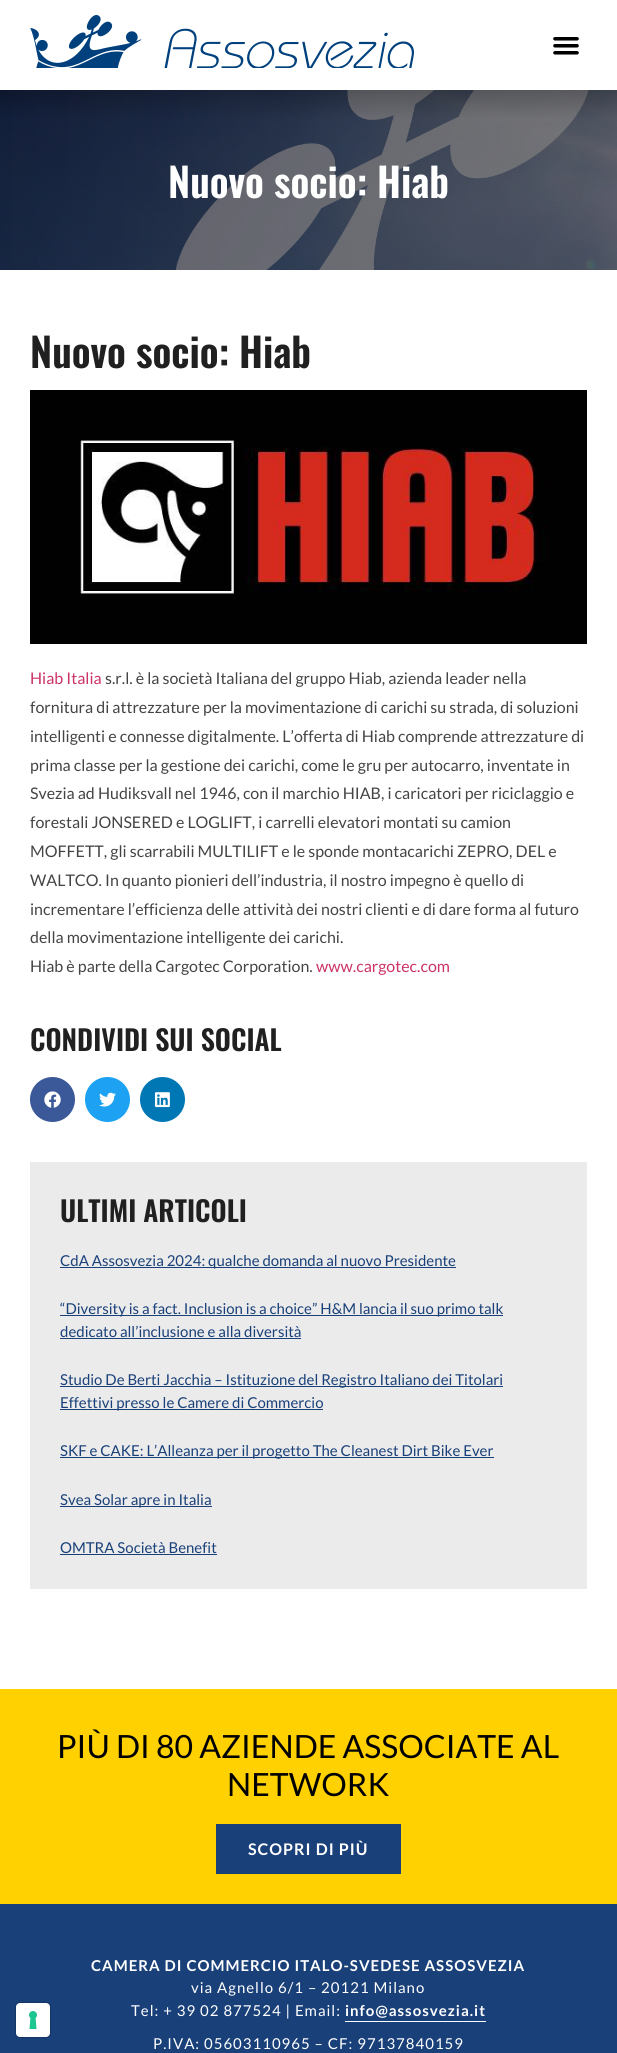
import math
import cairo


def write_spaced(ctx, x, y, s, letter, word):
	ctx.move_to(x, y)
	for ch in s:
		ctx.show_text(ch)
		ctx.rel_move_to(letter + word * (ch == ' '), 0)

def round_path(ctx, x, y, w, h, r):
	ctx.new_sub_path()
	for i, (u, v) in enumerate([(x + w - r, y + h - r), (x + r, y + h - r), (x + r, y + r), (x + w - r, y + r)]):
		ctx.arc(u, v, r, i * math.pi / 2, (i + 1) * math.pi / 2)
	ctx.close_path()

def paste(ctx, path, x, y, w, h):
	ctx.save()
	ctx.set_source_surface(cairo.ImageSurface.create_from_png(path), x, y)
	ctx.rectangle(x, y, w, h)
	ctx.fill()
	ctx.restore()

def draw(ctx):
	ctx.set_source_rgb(1, 1, 1)
	ctx.paint()
	paste(ctx, 'media/1.png', 30, 15, 384, 53)
	paste(ctx, 'media/2.png', 553, 37, 26, 18)
	paste(ctx, 'media/3.png', 0, 90, 617, 180)
	ctx.select_font_face('Oswald SemiBold')
	ctx.set_font_size(40)
	ctx.set_source_rgb(1, 1, 1)
	ctx.move_to(168, 198)
	ctx.show_text('Nuovo socio: Hiab')
	ctx.set_source_rgb(0.125, 0.125, 0.125)
	ctx.move_to(30, 368)
	ctx.show_text('Nuovo socio: Hiab')
	paste(ctx, 'media/4.png', 30, 390, 557, 254)
	ctx.select_font_face('Lato')
	ctx.set_font_size(16)
	ctx.set_source_rgb(0.8, 0.2, 0.4)
	ctx.move_to(30, 684)
	ctx.show_text('Hiab Italia')
	ctx.set_source_rgb(0.267, 0.267, 0.267)
	for x, y, s in [
		(105, 684, 's.r.l. è la società Italiana del gruppo Hiab, azienda leader nella'),
		(30, 713, 'fornitura di attrezzature per la movimentazione di carichi su strada, di soluzioni'),
		(30, 742, 'intelligenti e connesse digitalmente. L’offerta di Hiab comprende attrezzature di'),
		(30, 771, 'prima classe per la gestione dei carichi, come le gru per autocarro, inventate in'),
		(30, 799, 'Svezia ad Hudiksvall nel 1946, con il marchio HIAB, i caricatori per riciclaggio e'),
		(30, 828, 'forestali JONSERED e LOGLIFT, i carrelli elevatori montati su camion'),
		(30, 857, 'MOFFETT, gli scarrabili MULTILIFT e le sponde montacarichi ZEPRO, DEL e'),
		(30, 886, 'WALTCO. In quanto pionieri dell’industria, il nostro impegno è quello di'),
		(30, 915, 'incrementare l’efficienza delle attività dei nostri clienti e di dare forma al futuro'),
		(30, 943, 'della movimentazione intelligente dei carichi.'),
		(30, 972, 'Hiab è parte della Cargotec Corporation.'),
	]:
		ctx.move_to(x, y)
		ctx.show_text(s)
	ctx.set_source_rgb(0.8, 0.2, 0.4)
	ctx.move_to(316, 972)
	ctx.show_text('www.cargotec.com')
	ctx.select_font_face('Oswald SemiBold')
	ctx.set_font_size(28)
	ctx.set_source_rgb(0.125, 0.125, 0.125)
	ctx.move_to(30, 1051)
	ctx.show_text('CONDIVIDI SUI SOCIAL')
	ctx.set_source_rgb(0.231, 0.349, 0.596)
	ctx.new_path()
	ctx.arc(52.5, 1099.5, 22.5, 0, 2 * math.pi)
	ctx.fill()
	paste(ctx, 'media/5.png', 44, 1091, 17, 17)
	ctx.set_source_rgb(0.114, 0.631, 0.949)
	ctx.arc(107.5, 1099.5, 22.5, 0, 2 * math.pi)
	ctx.fill()
	paste(ctx, 'media/6.png', 99, 1092, 17, 15)
	ctx.set_source_rgb(0, 0.467, 0.71)
	ctx.arc(162.5, 1099.5, 22.5, 0, 2 * math.pi)
	ctx.fill()
	paste(ctx, 'media/7.png', 155, 1092, 15, 16)
	ctx.set_source_rgb(0.918, 0.918, 0.918)
	ctx.rectangle(30, 1162, 557, 427)
	ctx.fill()
	ctx.set_source_rgb(0.125, 0.125, 0.125)
	ctx.move_to(60, 1222)
	ctx.show_text('ULTIMI ARTICOLI')
	ctx.set_source_rgb(0.098, 0.251, 0.475)
	ctx.rectangle(60, 1267, 396, 1)
	ctx.fill()
	ctx.select_font_face('Lato')
	ctx.set_font_size(15)
	ctx.move_to(60, 1266)
	ctx.show_text('CdA Assosvezia 2024: qualche domanda al nuovo Presidente')
	ctx.rectangle(60, 1315, 443, 1)
	ctx.fill()
	ctx.move_to(60, 1314)
	ctx.show_text('“Diversity is a fact. Inclusion is a choice” H&M lancia il suo primo talk')
	ctx.move_to(60, 1337)
	ctx.show_text('dedicato all’inclusione e alla diversità')
	ctx.rectangle(60, 1338, 241, 1)
	ctx.fill()
	ctx.rectangle(60, 1386, 443, 1)
	ctx.fill()
	ctx.move_to(60, 1385)
	ctx.show_text('Studio De Berti Jacchia – Istituzione del Registro Italiano dei Titolari')
	ctx.rectangle(60, 1409, 263, 1)
	ctx.fill()
	ctx.move_to(60, 1408)
	ctx.show_text('Effettivi presso le Camere di Commercio')
	ctx.rectangle(60, 1457, 434, 1)
	ctx.fill()
	ctx.move_to(60, 1456)
	ctx.show_text('SKF e CAKE: L’Alleanza per il progetto The Cleanest Dirt Bike Ever')
	ctx.rectangle(60, 1506, 152, 1)
	ctx.fill()
	ctx.move_to(60, 1505)
	ctx.show_text('Svea Solar apre in Italia')
	ctx.move_to(60, 1553)
	ctx.show_text('OMTRA Società Benefit')
	ctx.rectangle(60, 1554, 157, 1)
	ctx.fill()
	ctx.rectangle(0, 1904, 617, 149)
	ctx.fill()
	round_path(ctx, 15.5, 2002.5, 35, 35, 4.5)
	ctx.set_source_rgb(0.082, 0.212, 0.404)
	ctx.set_line_width(1)
	ctx.stroke()
	ctx.set_source_rgb(1, 1, 1)
	round_path(ctx, 16, 2003, 34, 34, 4)
	ctx.fill()
	paste(ctx, 'media/8.png', 29, 2011, 8, 18)
	ctx.set_source_rgb(1, 0.82, 0)
	ctx.rectangle(0, 1689, 617, 215)
	ctx.fill()
	ctx.set_font_size(32)
	ctx.set_source_rgb(0, 0, 0)
	ctx.move_to(57, 1758)
	ctx.show_text('PIÙ DI 80 AZIENDE ASSOCIATE AL')
	ctx.move_to(227, 1796)
	ctx.show_text('NETWORK')
	ctx.set_source_rgb(0.098, 0.251, 0.475)
	ctx.rectangle(216, 1824, 185, 50)
	ctx.fill()
	ctx.select_font_face('Lato', cairo.FONT_SLANT_NORMAL, cairo.FONT_WEIGHT_BOLD)
	ctx.set_font_size(16)
	ctx.set_source_rgb(1, 1, 1)
	write_spaced(ctx, 248, 1855, 'SCOPRI DI PIÙ', 1, 0)
	ctx.set_font_size(15)
	write_spaced(ctx, 91, 1971, 'CAMERA DI COMMERCIO ITALO-SVEDESE ASSOSVEZIA', 1, 0)
	ctx.select_font_face('Lato')
	write_spaced(ctx, 191, 1993, 'via Agnello 6/1 – 20121 Milano', 1, 0)
	write_spaced(ctx, 131, 2016, 'Tel: + 39 02 877524 | Email:', 1, 0)
	ctx.rectangle(345, 2021, 141, 1)
	ctx.fill()
	ctx.select_font_face('Lato', cairo.FONT_SLANT_NORMAL, cairo.FONT_WEIGHT_BOLD)
	write_spaced(ctx, 345, 2016, 'info@assosvezia.it', 1, 0)
	ctx.select_font_face('Lato')
	write_spaced(ctx, 153, 2049, 'P.IVA: 05603110965 – CF: 97137840159', 1, 0)


surface = cairo.ImageSurface(cairo.FORMAT_RGB24, 617, 2053)
ctx = cairo.Context(surface)
options = cairo.FontOptions()
options.set_hint_metrics(cairo.HINT_METRICS_OFF)
options.set_hint_style(cairo.HINT_STYLE_NONE)
ctx.set_font_options(options)
ctx.set_miter_limit(4)
draw(ctx)
surface.write_to_png('image.png')
